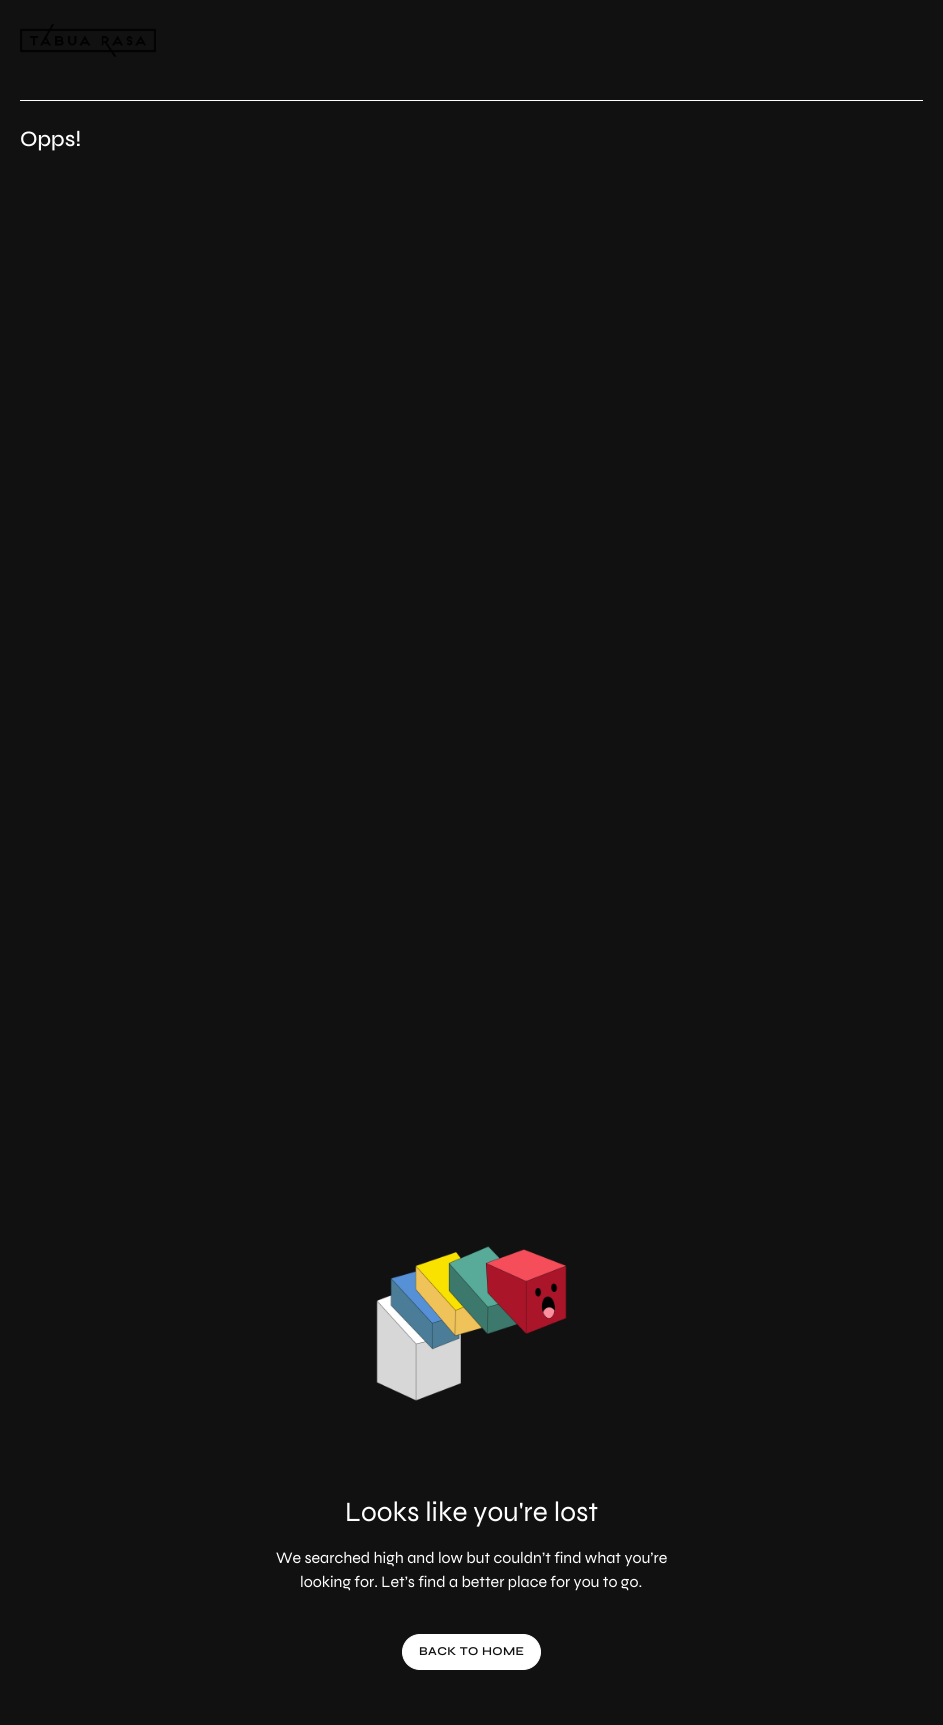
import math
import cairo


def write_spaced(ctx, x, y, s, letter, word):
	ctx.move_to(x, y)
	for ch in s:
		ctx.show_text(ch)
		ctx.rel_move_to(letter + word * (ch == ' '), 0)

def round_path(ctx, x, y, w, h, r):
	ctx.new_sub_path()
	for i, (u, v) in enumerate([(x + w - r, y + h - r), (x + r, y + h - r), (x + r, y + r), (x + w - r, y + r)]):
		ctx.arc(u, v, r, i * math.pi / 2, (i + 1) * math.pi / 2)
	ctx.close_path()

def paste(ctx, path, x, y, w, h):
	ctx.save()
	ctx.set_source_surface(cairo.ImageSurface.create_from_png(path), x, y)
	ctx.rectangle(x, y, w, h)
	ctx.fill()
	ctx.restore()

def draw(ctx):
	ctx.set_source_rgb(0.067, 0.067, 0.067)
	ctx.paint()
	paste(ctx, 'media/1.png', 20, 24, 136, 33)
	ctx.set_source_rgb(1, 1, 1)
	ctx.rectangle(20, 100, 903, 1)
	ctx.fill()
	ctx.select_font_face('Syne Medium')
	ctx.set_font_size(22)
	ctx.move_to(20, 146)
	ctx.show_text('Opps!')
	paste(ctx, 'media/2.png', 376, 1246, 191, 155)
	ctx.select_font_face('Syne')
	ctx.set_font_size(28)
	ctx.move_to(345, 1521)
	ctx.show_text('Looks like you\'re lost')
	ctx.set_font_size(16)
	ctx.move_to(276, 1563)
	ctx.show_text('We searched high and low but couldn’t find what you’re')
	ctx.move_to(300, 1587)
	ctx.show_text('looking for. Let’s find a better place for you to go.')
	round_path(ctx, 402.5, 1634.5, 138, 35, 17.5)
	ctx.fill_preserve()
	ctx.set_line_width(1)
	ctx.stroke()
	ctx.select_font_face('Syne SemiBold')
	ctx.set_font_size(12)
	ctx.set_source_rgb(0.067, 0.067, 0.067)
	write_spaced(ctx, 419, 1655, 'BACK TO HOME', 0.4, 0)


surface = cairo.ImageSurface(cairo.FORMAT_RGB24, 943, 1725)
ctx = cairo.Context(surface)
options = cairo.FontOptions()
options.set_hint_metrics(cairo.HINT_METRICS_OFF)
options.set_hint_style(cairo.HINT_STYLE_NONE)
ctx.set_font_options(options)
ctx.set_miter_limit(4)
draw(ctx)
surface.write_to_png('image.png')
